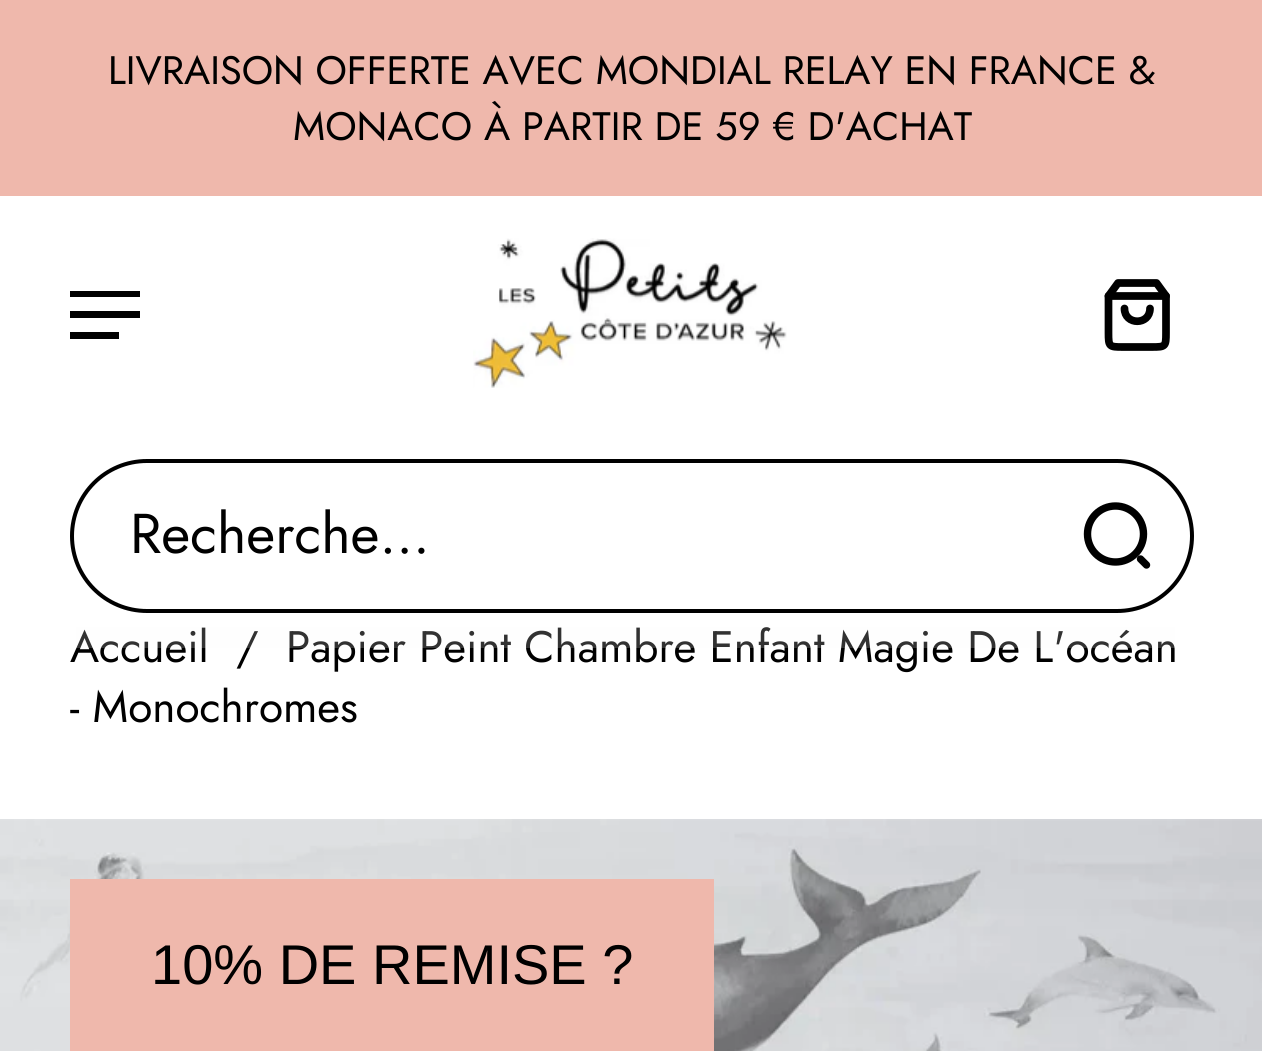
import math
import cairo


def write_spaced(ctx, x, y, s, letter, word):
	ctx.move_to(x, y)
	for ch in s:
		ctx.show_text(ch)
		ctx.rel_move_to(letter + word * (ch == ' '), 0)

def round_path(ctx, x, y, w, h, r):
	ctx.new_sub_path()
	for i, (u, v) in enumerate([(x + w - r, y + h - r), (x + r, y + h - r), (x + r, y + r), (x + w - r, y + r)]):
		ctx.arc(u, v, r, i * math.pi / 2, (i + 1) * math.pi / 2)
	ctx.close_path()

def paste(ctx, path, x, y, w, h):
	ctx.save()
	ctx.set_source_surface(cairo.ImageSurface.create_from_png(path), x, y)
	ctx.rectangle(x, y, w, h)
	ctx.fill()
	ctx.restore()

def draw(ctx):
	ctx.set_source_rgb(1, 1, 1)
	ctx.paint()
	ctx.set_source_rgb(0.937, 0.722, 0.675)
	ctx.rectangle(0, 0, 1262, 196)
	ctx.fill()
	ctx.select_font_face('Jost')
	ctx.set_font_size(39.7)
	ctx.set_source_rgb(0, 0, 0)
	write_spaced(ctx, 108, 84, 'LIVRAISON OFFERTE AVEC MONDIAL RELAY EN FRANCE &', 0, -0.25)
	ctx.move_to(293, 140)
	ctx.show_text('MONACO À PARTIR DE 59 € D\'ACHAT')
	ctx.save()
	ctx.rectangle(70, 291, 70, 49)
	ctx.clip()
	ctx.set_fill_rule(cairo.FILL_RULE_EVEN_ODD)
	ctx.new_path()
	ctx.move_to(70, 290)
	ctx.line_to(70, 297)
	ctx.line_to(140, 297)
	ctx.line_to(140, 290)
	ctx.close_path()
	ctx.move_to(70, 318)
	ctx.line_to(140, 318)
	ctx.line_to(140, 311)
	ctx.line_to(70, 311)
	ctx.close_path()
	ctx.move_to(70, 339)
	ctx.line_to(119, 339)
	ctx.line_to(119, 332)
	ctx.line_to(70, 332)
	ctx.close_path()
	ctx.fill()
	ctx.restore()
	paste(ctx, 'media/1.png', 473, 238, 314, 150)
	ctx.new_path()
	ctx.move_to(1118, 283)
	ctx.line_to(1108.5, 296)
	ctx.line_to(1108.5, 333)
	ctx.curve_to(1108.5, 346.5, 1109, 347, 1122.5, 347)
	ctx.line_to(1152, 347)
	ctx.curve_to(1165.5, 347, 1166, 346.5, 1166, 333)
	ctx.line_to(1166, 296)
	ctx.line_to(1156.5, 283)
	ctx.close_path()
	ctx.set_line_width(7.7)
	ctx.set_line_cap(cairo.LINE_CAP_ROUND)
	ctx.set_line_join(cairo.LINE_JOIN_ROUND)
	ctx.stroke()
	ctx.new_path()
	ctx.move_to(1108.5, 296)
	ctx.line_to(1166, 296)
	ctx.stroke()
	ctx.new_path()
	ctx.move_to(1150, 308.5)
	ctx.curve_to(1150, 325.5, 1124.5, 325.5, 1124.5, 308.5)
	ctx.stroke()
	ctx.set_font_size(44.1)
	for x, y, s in [
		(70, 662, 'Accueil'),
		(236, 662, '/'),
		(286, 662, 'Papier Peint Chambre Enfant Magie De L\'océan'),
	]:
		ctx.move_to(x, y)
		ctx.show_text(s)
	ctx.set_source_rgba(0.988, 0.988, 0.988, 0.2)
	ctx.rectangle(76, 627, 1099, 21)
	ctx.fill()
	round_path(ctx, 72, 461, 1120, 150, 75)
	ctx.set_source_rgb(0, 0, 0)
	ctx.set_line_width(4)
	ctx.set_line_cap(cairo.LINE_CAP_BUTT)
	ctx.set_line_join(cairo.LINE_JOIN_MITER)
	ctx.stroke()
	ctx.set_font_size(56)
	ctx.move_to(130, 553)
	ctx.show_text('Recherche...')
	ctx.new_path()
	ctx.move_to(1115.5, 562)
	ctx.curve_to(1131, 562, 1143.5, 549.5, 1143.5, 534)
	ctx.curve_to(1143.5, 518.5, 1131, 506, 1115.5, 506)
	ctx.curve_to(1100, 506, 1087.5, 518.5, 1087.5, 534)
	ctx.curve_to(1087.5, 549.5, 1100, 562, 1115.5, 562)
	ctx.close_path()
	ctx.set_line_width(7.4)
	ctx.set_line_cap(cairo.LINE_CAP_ROUND)
	ctx.set_line_join(cairo.LINE_JOIN_ROUND)
	ctx.stroke()
	ctx.new_path()
	ctx.move_to(1146.5, 565)
	ctx.line_to(1140.5, 559)
	ctx.stroke()
	ctx.set_font_size(44.1)
	ctx.move_to(70, 722)
	ctx.show_text('- Monochromes')
	paste(ctx, 'media/2.png', 0, 819, 1262, 232)
	ctx.set_source_rgb(0.937, 0.722, 0.675)
	ctx.rectangle(70, 879, 644, 172)
	ctx.fill()
	ctx.select_font_face('Liberation Sans')
	ctx.set_font_size(56)
	ctx.set_source_rgb(0, 0, 0)
	ctx.move_to(151, 984)
	ctx.show_text('10% DE REMISE ?')


surface = cairo.ImageSurface(cairo.FORMAT_RGB24, 1262, 1051)
ctx = cairo.Context(surface)
options = cairo.FontOptions()
options.set_hint_metrics(cairo.HINT_METRICS_OFF)
options.set_hint_style(cairo.HINT_STYLE_NONE)
ctx.set_font_options(options)
ctx.set_miter_limit(4)
draw(ctx)
surface.write_to_png('image.png')
